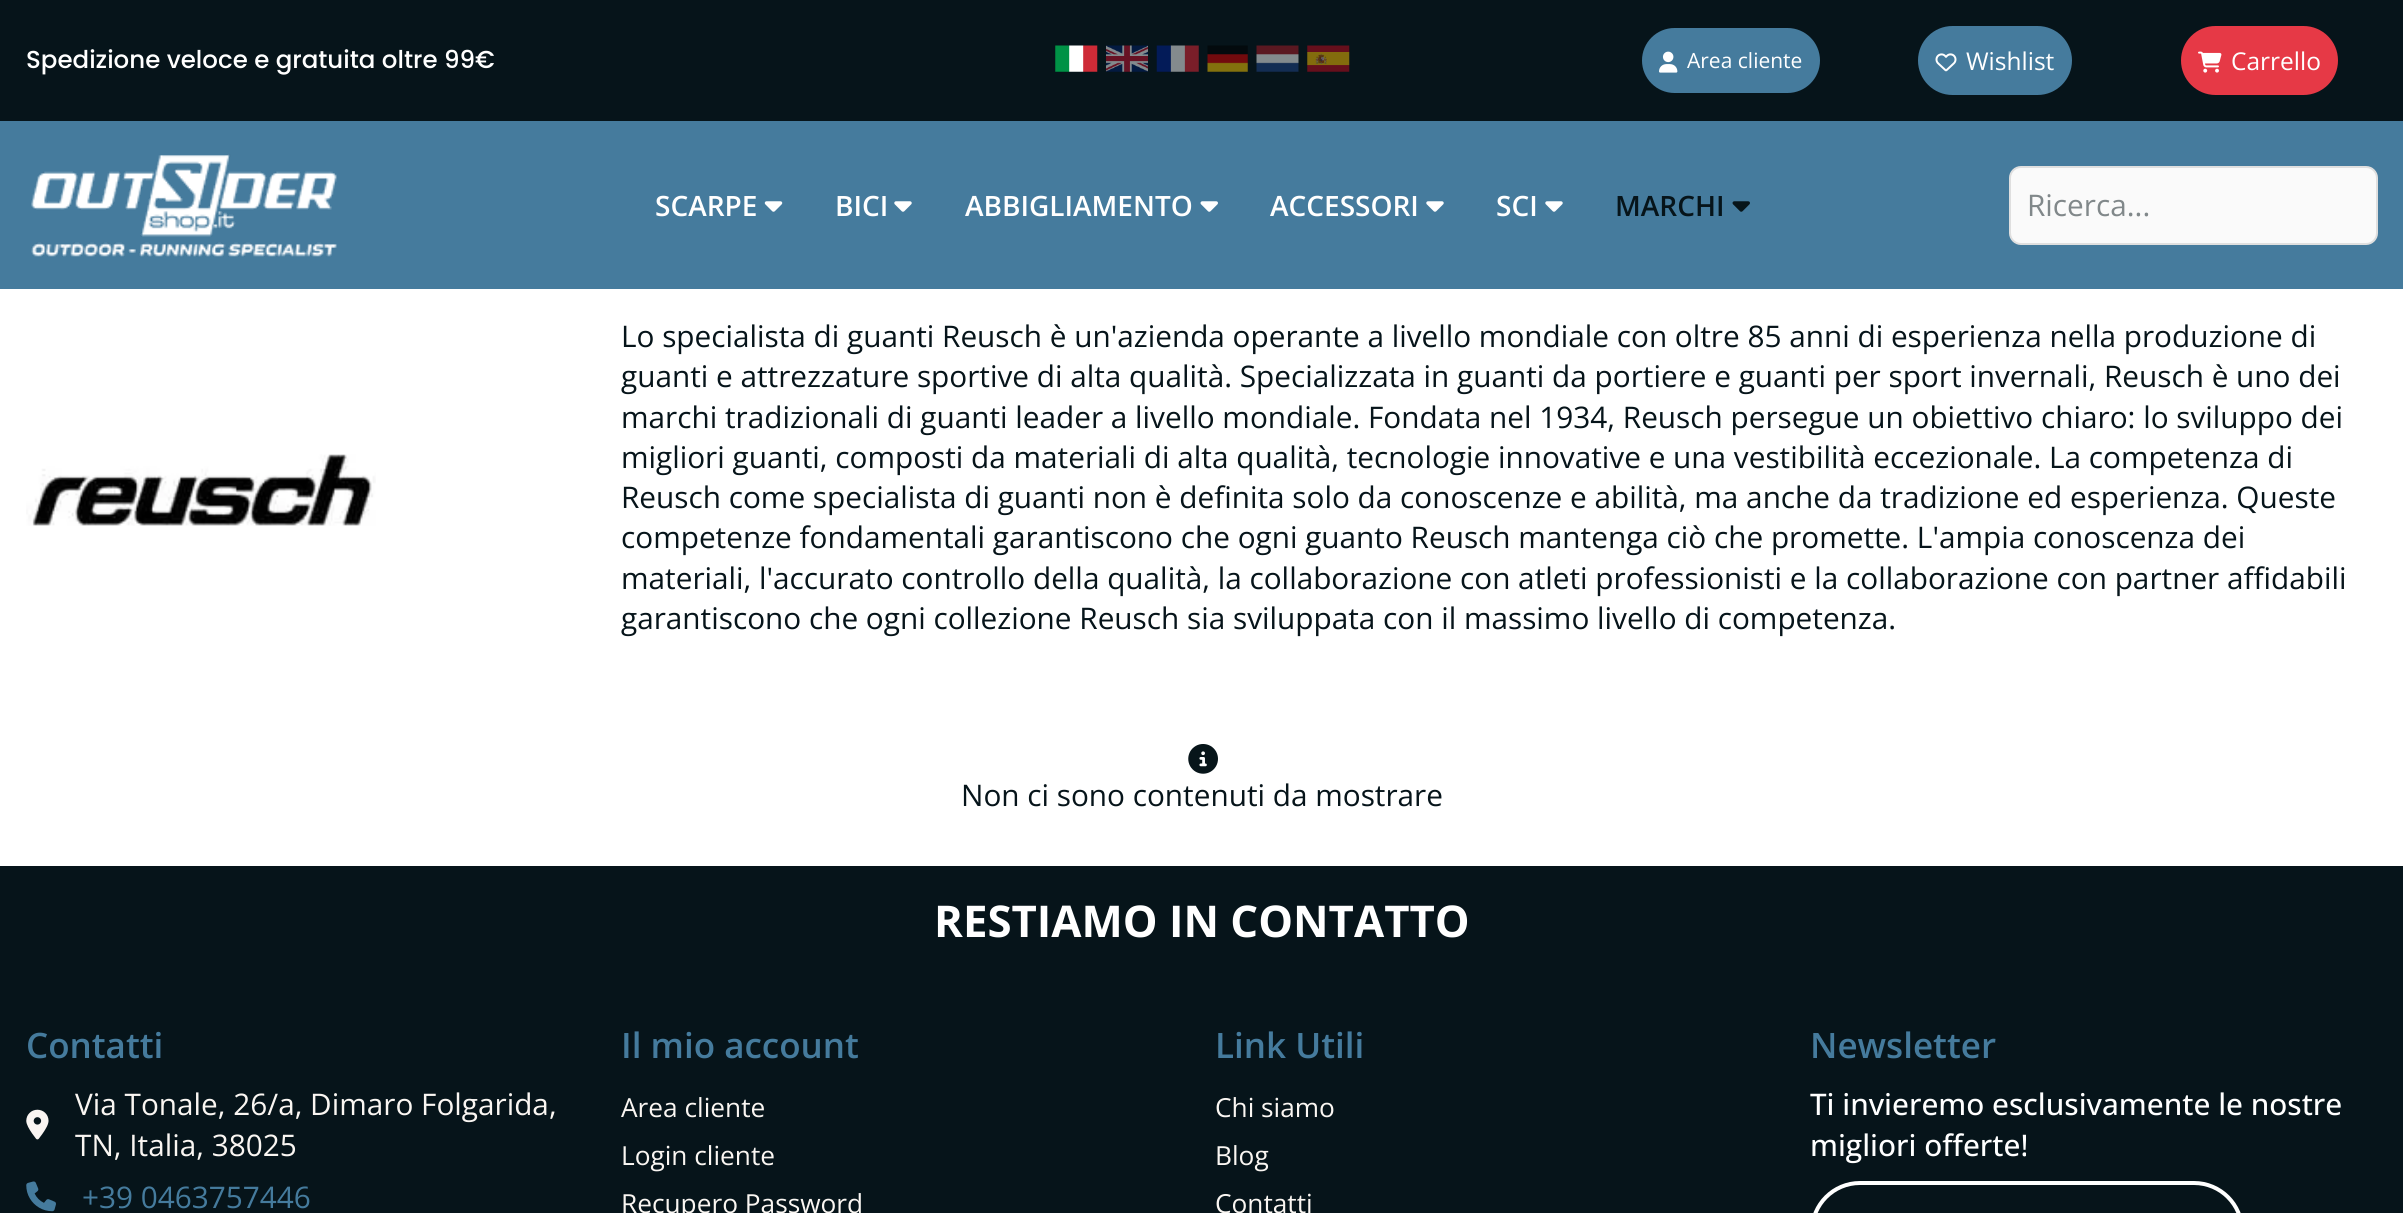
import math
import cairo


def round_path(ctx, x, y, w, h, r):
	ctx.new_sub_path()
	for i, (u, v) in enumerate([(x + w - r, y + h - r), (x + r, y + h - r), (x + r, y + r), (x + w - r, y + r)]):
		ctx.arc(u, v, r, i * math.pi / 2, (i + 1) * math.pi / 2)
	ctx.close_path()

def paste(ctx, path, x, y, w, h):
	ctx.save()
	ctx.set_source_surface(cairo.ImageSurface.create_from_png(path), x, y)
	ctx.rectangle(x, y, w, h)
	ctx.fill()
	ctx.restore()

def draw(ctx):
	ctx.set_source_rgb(1, 1, 1)
	ctx.paint()
	ctx.set_source_rgb(0.027, 0.082, 0.102)
	ctx.rectangle(0, 0, 2403, 121)
	ctx.fill()
	ctx.select_font_face('Poppins Medium')
	ctx.set_font_size(24.5)
	ctx.set_source_rgb(1, 1, 1)
	ctx.move_to(26, 68)
	ctx.show_text('Spedizione veloce e gratuita oltre 99€')
	paste(ctx, 'media/1.png', 1055, 45, 43, 27)
	paste(ctx, 'media/2.png', 1106, 45, 42, 27)
	paste(ctx, 'media/3.png', 1156, 45, 43, 27)
	paste(ctx, 'media/4.png', 1207, 45, 41, 27)
	paste(ctx, 'media/5.png', 1256, 45, 43, 27)
	paste(ctx, 'media/6.png', 1307, 45, 43, 27)
	ctx.set_source_rgb(0.271, 0.482, 0.616)
	round_path(ctx, 1642, 28, 178, 65, 32.5)
	ctx.fill()
	paste(ctx, 'media/7.png', 1659, 51, 19, 22)
	ctx.select_font_face('Open Sans')
	ctx.set_font_size(21)
	ctx.set_source_rgb(1, 1, 1)
	ctx.move_to(1687, 68)
	ctx.show_text('Area cliente')
	ctx.set_source_rgb(0.271, 0.482, 0.616)
	round_path(ctx, 1918, 26, 154, 69, 34.5)
	ctx.fill()
	paste(ctx, 'media/8.png', 1935, 53, 22, 19)
	ctx.set_font_size(24.5)
	ctx.set_source_rgb(1, 1, 1)
	ctx.move_to(1966, 70)
	ctx.show_text('Wishlist')
	ctx.set_source_rgb(0.902, 0.224, 0.275)
	round_path(ctx, 2181, 26, 157, 69, 34.5)
	ctx.fill()
	paste(ctx, 'media/9.png', 2198, 51, 24, 22)
	ctx.set_source_rgb(1, 1, 1)
	ctx.move_to(2231, 70)
	ctx.show_text('Carrello')
	ctx.set_source_rgb(0.271, 0.482, 0.616)
	ctx.rectangle(0, 121, 2403, 168)
	ctx.fill()
	paste(ctx, 'media/10.png', 31, 154, 306, 103)
	ctx.select_font_face('Open Sans SemiBold')
	ctx.set_font_size(28)
	ctx.set_source_rgb(1, 1, 1)
	ctx.move_to(655, 216)
	ctx.show_text('SCARPE')
	paste(ctx, 'media/11.png', 764, 201, 19, 11)
	ctx.move_to(835, 216)
	ctx.show_text('BICI')
	paste(ctx, 'media/12.png', 894, 201, 18, 11)
	ctx.move_to(965, 216)
	ctx.show_text('ABBIGLIAMENTO')
	paste(ctx, 'media/13.png', 1200, 201, 18, 11)
	ctx.move_to(1270, 216)
	ctx.show_text('ACCESSORI')
	paste(ctx, 'media/12.png', 1426, 201, 18, 11)
	ctx.move_to(1496, 216)
	ctx.show_text('SCI')
	paste(ctx, 'media/12.png', 1545, 201, 18, 11)
	ctx.set_source_rgb(0.027, 0.082, 0.102)
	ctx.move_to(1615, 216)
	ctx.show_text('MARCHI')
	paste(ctx, 'media/14.png', 1732, 201, 18, 11)
	ctx.set_source_rgb(0.98, 0.98, 0.98)
	round_path(ctx, 2010, 167, 367, 77, 11)
	ctx.fill_preserve()
	ctx.set_source_rgb(0.875, 0.875, 0.875)
	ctx.stroke()
	ctx.select_font_face('Open Sans')
	ctx.set_font_size(29.75)
	ctx.set_source_rgb(0.506, 0.533, 0.541)
	ctx.move_to(2027, 216)
	ctx.show_text('Ricerca...')
	paste(ctx, 'media/15.png', 26, 454, 350, 72)
	ctx.set_source_rgb(0.027, 0.082, 0.102)
	for x, y, s in [
		(621, 347, 'Lo specialista di guanti Reusch è un\'azienda operante a livello mondiale con oltre 85 anni di esperienza nella produzione di'),
		(621, 387, 'guanti e attrezzature sportive di alta qualità. Specializzata in guanti da portiere e guanti per sport invernali, Reusch è uno dei'),
		(621, 428, 'marchi tradizionali di guanti leader a livello mondiale. Fondata nel 1934, Reusch persegue un obiettivo chiaro: lo sviluppo dei'),
		(621, 468, 'migliori guanti, composti da materiali di alta qualità, tecnologie innovative e una vestibilità eccezionale. La competenza di'),
		(621, 508, 'Reusch come specialista di guanti non è definita solo da conoscenze e abilità, ma anche da tradizione ed esperienza. Queste'),
		(621, 548, 'competenze fondamentali garantiscono che ogni guanto Reusch mantenga ciò che promette. L\'ampia conoscenza dei'),
		(621, 589, 'materiali, l\'accurato controllo della qualità, la collaborazione con atleti professionisti e la collaborazione con partner affidabili'),
		(621, 629, 'garantiscono che ogni collezione Reusch sia sviluppata con il massimo livello di competenza.'),
	]:
		ctx.move_to(x, y)
		ctx.show_text(s)
	paste(ctx, 'media/16.png', 1188, 744, 30, 30)
	ctx.move_to(961, 806)
	ctx.show_text('Non ci sono contenuti da mostrare')
	ctx.rectangle(0, 866, 2403, 347)
	ctx.fill()
	ctx.select_font_face('Open Sans', cairo.FONT_SLANT_NORMAL, cairo.FONT_WEIGHT_BOLD)
	ctx.set_font_size(43.75)
	ctx.set_source_rgb(1, 1, 1)
	ctx.move_to(934, 937)
	ctx.show_text('RESTIAMO IN CONTATTO')
	ctx.select_font_face('Open Sans SemiBold')
	ctx.set_font_size(35)
	ctx.set_source_rgb(0.271, 0.482, 0.616)
	ctx.move_to(26, 1058)
	ctx.show_text('Contatti')
	paste(ctx, 'media/17.png', 26, 1109, 23, 31)
	ctx.select_font_face('Open Sans')
	ctx.set_font_size(29.75)
	ctx.set_source_rgb(0.98, 0.961, 0.949)
	ctx.move_to(75, 1115)
	ctx.show_text('Via Tonale, 26/a, Dimaro Folgarida,')
	ctx.move_to(75, 1156)
	ctx.show_text('TN, Italia, 38025')
	paste(ctx, 'media/18.png', 26, 1181, 30, 31)
	ctx.set_source_rgb(0.271, 0.482, 0.616)
	ctx.move_to(82, 1208)
	ctx.show_text('+39 0463757446')
	ctx.select_font_face('Open Sans SemiBold')
	ctx.set_font_size(35)
	ctx.move_to(621, 1058)
	ctx.show_text('Il mio account')
	ctx.select_font_face('Open Sans')
	ctx.set_font_size(26.25)
	ctx.set_source_rgb(0.98, 0.961, 0.949)
	for x, y, s in [
		(621, 1117, 'Area cliente'),
		(621, 1165, 'Login cliente'),
		(621, 1213, 'Recupero Password'),
	]:
		ctx.move_to(x, y)
		ctx.show_text(s)
	ctx.select_font_face('Open Sans SemiBold')
	ctx.set_font_size(35)
	ctx.set_source_rgb(0.271, 0.482, 0.616)
	ctx.move_to(1215, 1058)
	ctx.show_text('Link Utili')
	ctx.select_font_face('Open Sans')
	ctx.set_font_size(26.25)
	ctx.set_source_rgb(0.98, 0.961, 0.949)
	for x, y, s in [
		(1215, 1117, 'Chi siamo'),
		(1215, 1165, 'Blog'),
		(1215, 1213, 'Contatti'),
	]:
		ctx.move_to(x, y)
		ctx.show_text(s)
	ctx.select_font_face('Open Sans SemiBold')
	ctx.set_font_size(35)
	ctx.set_source_rgb(0.271, 0.482, 0.616)
	ctx.move_to(1810, 1058)
	ctx.show_text('Newsletter')
	ctx.select_font_face('Open Sans Medium')
	ctx.set_font_size(29.75)
	ctx.set_source_rgb(1, 1, 1)
	ctx.move_to(1810, 1115)
	ctx.show_text('Ti invieremo esclusivamente le nostre')
	ctx.move_to(1810, 1156)
	ctx.show_text('migliori offerte!')
	round_path(ctx, 1812, 1183, 430, 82, 48)
	ctx.set_line_width(4)
	ctx.stroke()


surface = cairo.ImageSurface(cairo.FORMAT_RGB24, 2403, 1213)
ctx = cairo.Context(surface)
options = cairo.FontOptions()
options.set_hint_metrics(cairo.HINT_METRICS_OFF)
options.set_hint_style(cairo.HINT_STYLE_NONE)
ctx.set_font_options(options)
ctx.set_miter_limit(4)
draw(ctx)
surface.write_to_png('image.png')
